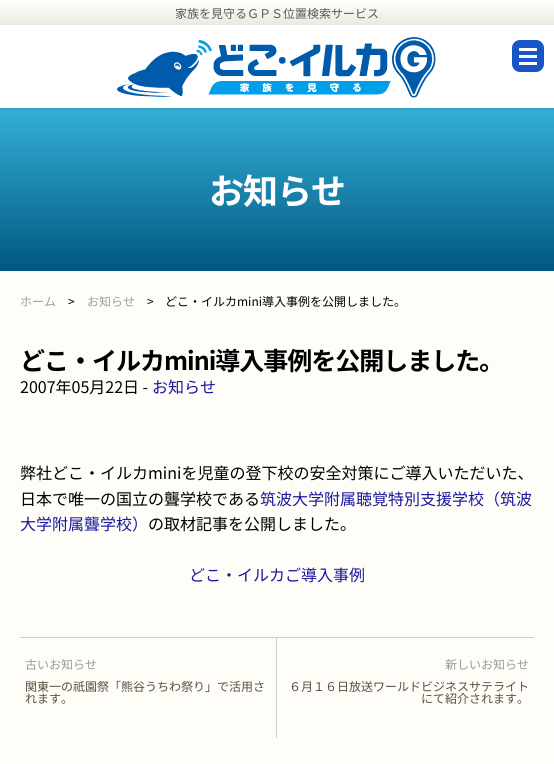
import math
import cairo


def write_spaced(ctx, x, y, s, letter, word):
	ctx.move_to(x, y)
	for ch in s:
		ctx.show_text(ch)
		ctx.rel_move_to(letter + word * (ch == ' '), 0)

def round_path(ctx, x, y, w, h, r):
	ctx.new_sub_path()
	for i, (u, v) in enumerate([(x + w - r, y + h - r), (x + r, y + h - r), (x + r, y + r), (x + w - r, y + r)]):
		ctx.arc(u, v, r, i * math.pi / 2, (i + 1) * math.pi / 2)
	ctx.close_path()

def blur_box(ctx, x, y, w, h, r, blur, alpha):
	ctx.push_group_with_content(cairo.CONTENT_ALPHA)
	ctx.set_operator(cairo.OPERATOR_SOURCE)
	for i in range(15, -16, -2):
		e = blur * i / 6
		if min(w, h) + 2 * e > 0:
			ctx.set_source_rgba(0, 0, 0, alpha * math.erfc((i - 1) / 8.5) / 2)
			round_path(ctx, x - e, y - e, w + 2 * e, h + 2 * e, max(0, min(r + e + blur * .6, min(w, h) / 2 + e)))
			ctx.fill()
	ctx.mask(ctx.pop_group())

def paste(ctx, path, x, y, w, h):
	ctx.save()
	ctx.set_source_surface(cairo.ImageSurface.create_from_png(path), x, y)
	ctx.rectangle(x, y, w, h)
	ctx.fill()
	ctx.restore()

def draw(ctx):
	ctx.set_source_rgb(1, 1, 1)
	ctx.paint()
	gradient = cairo.LinearGradient(277, 0, 277, 25)
	gradient.add_color_stop_rgba(0, 1, 1, 1, 1)
	gradient.add_color_stop_rgba(1, 0.918, 0.918, 0.882, 1)
	ctx.set_source(gradient)
	ctx.rectangle(0, 2, 554, 23)
	ctx.fill()
	ctx.select_font_face('Noto Sans JP')
	ctx.set_font_size(12)
	ctx.set_source_rgb(0.345, 0.341, 0.341)
	ctx.move_to(175, 18)
	ctx.show_text('家族を見守るＧＰＳ位置検索サービス')
	gradient = cairo.LinearGradient(277, 108, 277, 271)
	gradient.add_color_stop_rgba(0, 0.208, 0.686, 0.847, 1)
	gradient.add_color_stop_rgba(1, 0, 0.345, 0.502, 1)
	ctx.set_source(gradient)
	ctx.rectangle(0, 108, 554, 163)
	ctx.fill()
	ctx.save()
	ctx.rectangle(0, 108, 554, 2)
	ctx.clip()
	ctx.set_source_rgb(0, 0, 0)
	blur_box(ctx, 0, 26, 554, 83, 0, 1, 0.17)
	ctx.restore()
	paste(ctx, 'media/1.png', 117, 37, 319, 61)
	ctx.set_source_rgb(0.094, 0.333, 0.78)
	round_path(ctx, 512, 40, 32, 32, 8)
	ctx.fill()
	ctx.set_source_rgb(1, 1, 1)
	ctx.rectangle(519, 48, 18, 3)
	ctx.rectangle(519, 55, 18, 3)
	ctx.rectangle(519, 62, 18, 3)
	ctx.fill()
	ctx.set_source_rgb(0.996, 0.992, 0.969)
	ctx.rectangle(0, 271, 554, 493)
	ctx.fill()
	ctx.select_font_face('Noto Sans JP', cairo.FONT_SLANT_NORMAL, cairo.FONT_WEIGHT_BOLD)
	ctx.set_font_size(35)
	ctx.set_source_rgb(1, 1, 1)
	write_spaced(ctx, 209, 204, 'お知らせ', -1, 0)
	ctx.select_font_face('Noto Sans JP')
	ctx.set_font_size(12)
	ctx.set_source_rgb(0.584, 0.624, 0.647)
	ctx.move_to(20, 306)
	ctx.show_text('ホーム')
	ctx.set_source_rgb(0, 0, 0)
	ctx.move_to(68, 306)
	ctx.show_text('>')
	ctx.set_source_rgb(0.584, 0.624, 0.647)
	ctx.move_to(87, 306)
	ctx.show_text('お知らせ')
	ctx.set_source_rgb(0, 0, 0)
	ctx.move_to(147, 306)
	ctx.show_text('>')
	ctx.move_to(165, 306)
	ctx.show_text('どこ・イルカmini導入事例を公開しました。')
	ctx.select_font_face('Noto Sans JP', cairo.FONT_SLANT_NORMAL, cairo.FONT_WEIGHT_BOLD)
	ctx.set_font_size(25)
	write_spaced(ctx, 20, 370, 'どこ・イルカmini導入事例を公開しました。', -1, 0)
	ctx.select_font_face('Noto Sans JP')
	ctx.set_font_size(16)
	ctx.move_to(20, 393)
	ctx.show_text('2007年05月22日 -')
	ctx.set_source_rgb(0.106, 0.09, 0.62)
	ctx.move_to(152, 393)
	ctx.show_text('お知らせ')
	ctx.set_source_rgb(0, 0, 0)
	ctx.move_to(20, 479)
	ctx.show_text('弊社どこ・イルカminiを児童の登下校の安全対策にご導入いただいた、')
	ctx.move_to(20, 505)
	ctx.show_text('日本で唯一の国立の聾学校である')
	ctx.set_source_rgb(0.106, 0.09, 0.62)
	ctx.move_to(260, 505)
	ctx.show_text('筑波大学附属聴覚特別支援学校（筑波')
	ctx.move_to(20, 530)
	ctx.show_text('大学附属聾学校）')
	ctx.set_source_rgb(0, 0, 0)
	ctx.move_to(148, 530)
	ctx.show_text('の取材記事を公開しました。')
	ctx.set_source_rgb(0.106, 0.09, 0.62)
	ctx.move_to(189, 581)
	ctx.show_text('どこ・イルカご導入事例')
	ctx.set_source_rgb(0.8, 0.8, 0.8)
	ctx.rectangle(20, 637, 514, 1)
	ctx.fill()
	ctx.rectangle(276, 638, 1, 100)
	ctx.fill()
	ctx.set_font_size(12)
	ctx.set_source_rgb(0.6, 0.6, 0.6)
	ctx.move_to(25, 669)
	ctx.show_text('古いお知らせ')
	ctx.set_source_rgb(0.349, 0.31, 0.243)
	ctx.move_to(25, 691)
	ctx.show_text('関東一の祇園祭「熊谷うちわ祭り」で活用さ')
	ctx.move_to(25, 703)
	ctx.show_text('れます。')
	ctx.set_source_rgb(0.6, 0.6, 0.6)
	ctx.move_to(445, 669)
	ctx.show_text('新しいお知らせ')
	ctx.set_source_rgb(0.349, 0.31, 0.243)
	ctx.move_to(289, 691)
	ctx.show_text('６月１６日放送ワールドビジネスサテライト')
	ctx.move_to(421, 703)
	ctx.show_text('にて紹介されます。')


surface = cairo.ImageSurface(cairo.FORMAT_RGB24, 554, 764)
ctx = cairo.Context(surface)
options = cairo.FontOptions()
options.set_hint_metrics(cairo.HINT_METRICS_OFF)
options.set_hint_style(cairo.HINT_STYLE_NONE)
ctx.set_font_options(options)
ctx.set_miter_limit(4)
draw(ctx)
surface.write_to_png('image.png')
